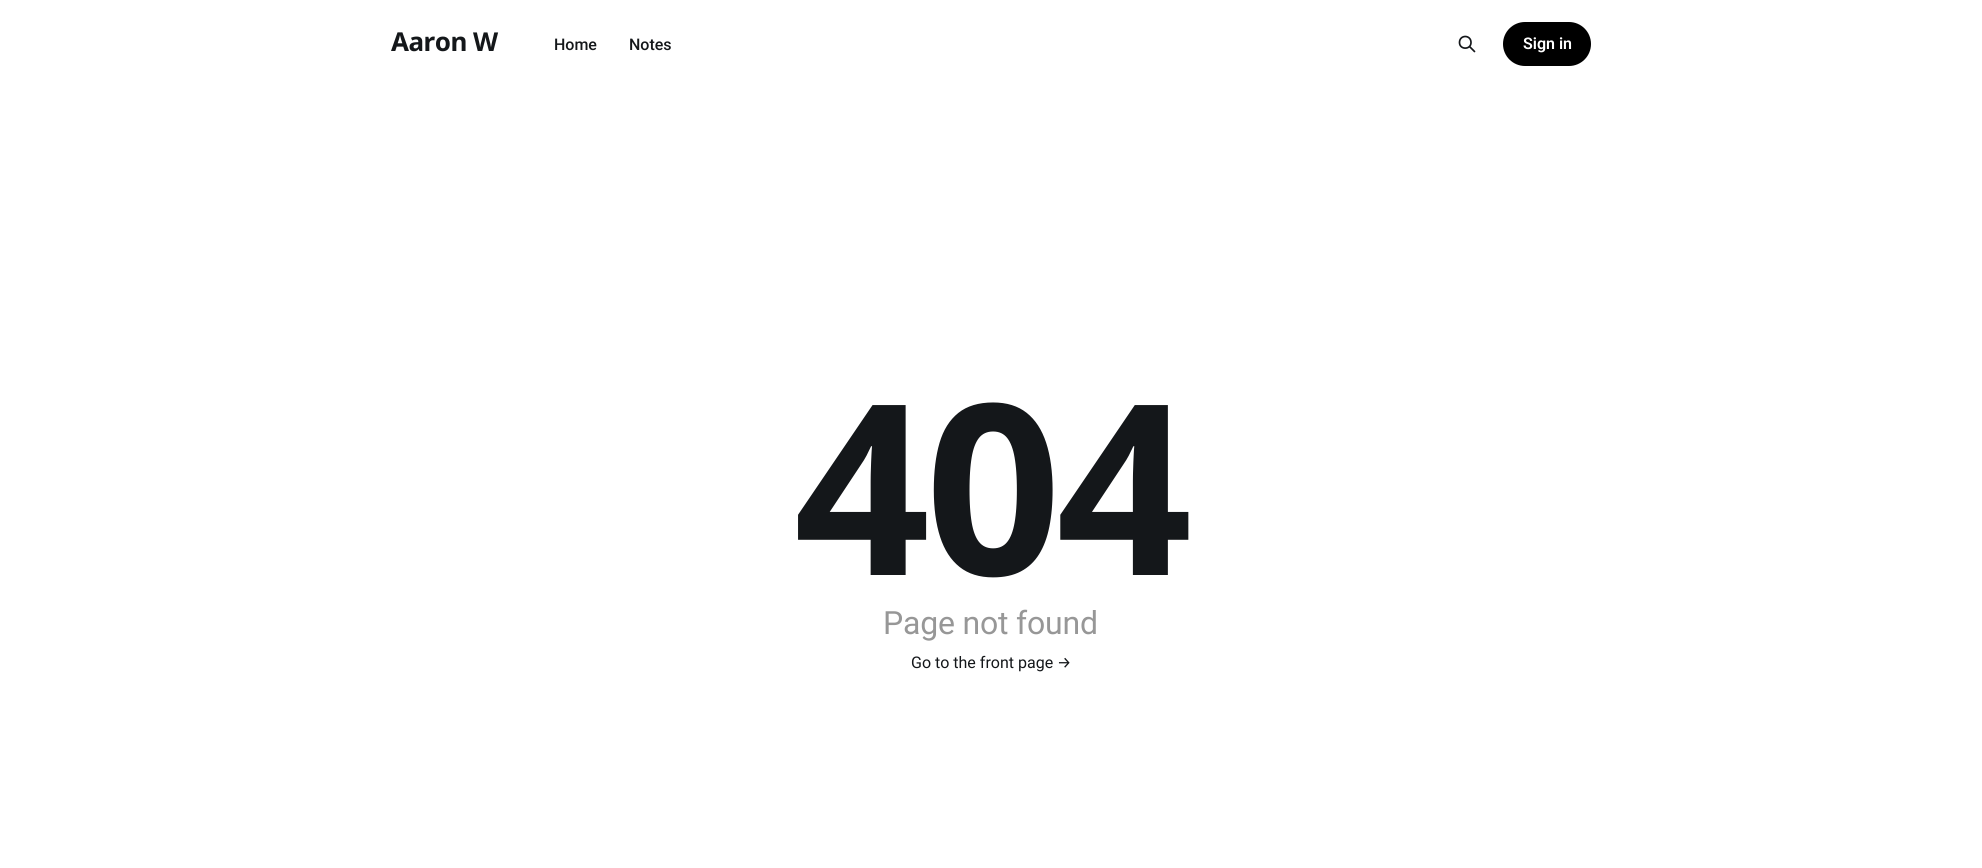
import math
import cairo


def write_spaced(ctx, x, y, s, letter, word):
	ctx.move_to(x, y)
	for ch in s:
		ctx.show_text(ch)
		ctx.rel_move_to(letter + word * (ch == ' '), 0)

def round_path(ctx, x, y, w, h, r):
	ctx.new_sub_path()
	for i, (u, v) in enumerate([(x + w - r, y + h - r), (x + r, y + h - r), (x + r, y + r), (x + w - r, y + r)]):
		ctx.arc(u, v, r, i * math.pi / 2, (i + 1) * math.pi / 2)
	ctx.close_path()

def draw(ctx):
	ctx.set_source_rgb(1, 1, 1)
	ctx.paint()
	ctx.select_font_face('Noto Sans', cairo.FONT_SLANT_NORMAL, cairo.FONT_WEIGHT_BOLD)
	ctx.set_font_size(26)
	ctx.set_source_rgb(0.082, 0.09, 0.102)
	write_spaced(ctx, 391, 51, 'Aaron W', -0.5, 0)
	ctx.select_font_face('Roboto Medium')
	ctx.set_font_size(16)
	ctx.move_to(554, 50)
	ctx.show_text('Home')
	ctx.move_to(629, 50)
	ctx.show_text('Notes')
	ctx.new_path()
	ctx.move_to(1474.5, 51.5)
	ctx.line_to(1469.5, 46.5)
	ctx.move_to(1471, 42.5)
	ctx.curve_to(1471, 50, 1459.5, 50, 1459.5, 42.5)
	ctx.curve_to(1459.5, 34.5, 1471, 34.5, 1471, 42.5)
	ctx.close_path()
	ctx.set_line_width(1.7)
	ctx.set_line_cap(cairo.LINE_CAP_ROUND)
	ctx.set_line_join(cairo.LINE_JOIN_ROUND)
	ctx.stroke()
	ctx.set_source_rgb(0, 0, 0)
	round_path(ctx, 1503, 22, 88, 44, 22)
	ctx.fill()
	ctx.select_font_face('Roboto SemiBold')
	ctx.set_source_rgb(1, 1, 1)
	ctx.move_to(1523, 49)
	ctx.show_text('Sign in')
	ctx.select_font_face('Noto Sans', cairo.FONT_SLANT_NORMAL, cairo.FONT_WEIGHT_BOLD)
	ctx.set_font_size(238)
	ctx.set_source_rgb(0.082, 0.09, 0.102)
	write_spaced(ctx, 794, 575, '404', -5, 0)
	ctx.select_font_face('Roboto')
	ctx.set_font_size(32)
	ctx.set_source_rgb(0.592, 0.592, 0.592)
	write_spaced(ctx, 883, 634, 'Page not found', -0.2, 0)
	ctx.set_font_size(16)
	ctx.set_source_rgb(0.082, 0.09, 0.102)
	ctx.move_to(911, 668)
	ctx.show_text('Go to the front page')
	ctx.select_font_face('Fira Sans')
	ctx.move_to(1057, 668)
	ctx.show_text('→')


surface = cairo.ImageSurface(cairo.FORMAT_RGB24, 1982, 868)
ctx = cairo.Context(surface)
options = cairo.FontOptions()
options.set_hint_metrics(cairo.HINT_METRICS_OFF)
options.set_hint_style(cairo.HINT_STYLE_NONE)
ctx.set_font_options(options)
ctx.set_miter_limit(4)
draw(ctx)
surface.write_to_png('image.png')
